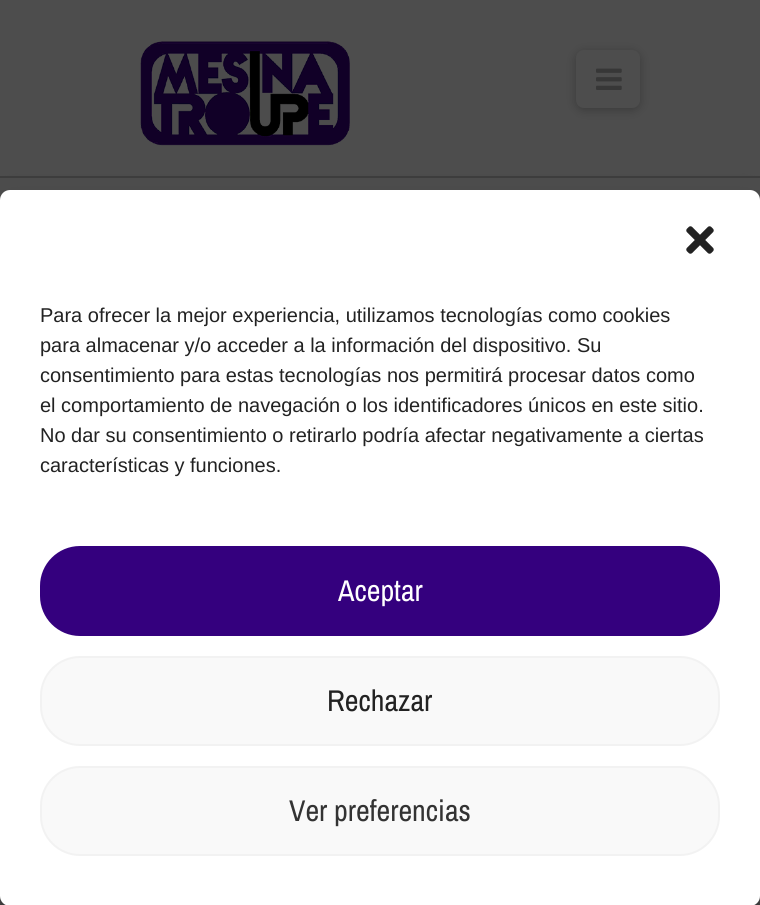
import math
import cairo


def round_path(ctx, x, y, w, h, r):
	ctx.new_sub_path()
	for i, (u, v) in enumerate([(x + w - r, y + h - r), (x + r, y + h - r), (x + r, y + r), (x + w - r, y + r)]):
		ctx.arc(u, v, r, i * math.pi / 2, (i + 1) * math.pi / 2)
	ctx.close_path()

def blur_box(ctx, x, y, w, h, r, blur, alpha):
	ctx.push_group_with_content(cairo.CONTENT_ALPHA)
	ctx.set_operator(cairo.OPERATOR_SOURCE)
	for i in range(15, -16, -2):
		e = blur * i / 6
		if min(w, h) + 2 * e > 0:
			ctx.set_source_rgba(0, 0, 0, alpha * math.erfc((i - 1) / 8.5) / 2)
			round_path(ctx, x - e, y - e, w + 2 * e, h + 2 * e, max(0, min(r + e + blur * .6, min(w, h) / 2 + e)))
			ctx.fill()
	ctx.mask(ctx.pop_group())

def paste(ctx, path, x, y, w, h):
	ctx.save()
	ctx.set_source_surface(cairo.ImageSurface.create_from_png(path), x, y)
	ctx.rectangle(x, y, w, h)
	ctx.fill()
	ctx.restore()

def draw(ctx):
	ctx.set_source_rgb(0.302, 0.302, 0.302)
	ctx.paint()
	ctx.set_source_rgb(0.239, 0.239, 0.239)
	ctx.rectangle(0, 176, 760, 2)
	ctx.fill()
	paste(ctx, 'media/1.png', 140, 41, 210, 105)
	ctx.set_source_rgb(0, 0, 0)
	blur_box(ctx, 576, 52, 64, 58, 8, 5, 0.25)
	ctx.set_source_rgb(0.302, 0.302, 0.302)
	round_path(ctx, 576, 50, 64, 58, 8)
	ctx.fill()
	paste(ctx, 'media/2.png', 596, 68, 26, 22)
	ctx.set_source_rgb(0, 0, 0)
	blur_box(ctx, 0, 202, 760, 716, 10, 6, 0.23)
	blur_box(ctx, 0, 210, 760, 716, 10, 20, 0.19)
	ctx.set_source_rgb(1, 1, 1)
	round_path(ctx, 0, 190, 760, 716, 10)
	ctx.fill()
	paste(ctx, 'media/3.png', 686, 226, 28, 28)
	ctx.select_font_face('Liberation Sans')
	ctx.set_font_size(20)
	ctx.set_source_rgb(0.133, 0.133, 0.133)
	for x, y, s in [
		(40, 322, 'Para ofrecer la mejor experiencia, utilizamos tecnologías como cookies'),
		(40, 352, 'para almacenar y/o acceder a la información del dispositivo. Su'),
		(40, 382, 'consentimiento para estas tecnologías nos permitirá procesar datos como'),
		(40, 412, 'el comportamiento de navegación o los identificadores únicos en este sitio.'),
		(40, 442, 'No dar su consentimiento o retirarlo podría afectar negativamente a ciertas'),
		(40, 472, 'características y funciones.'),
	]:
		ctx.move_to(x, y)
		ctx.show_text(s)
	ctx.set_source_rgb(0.204, 0, 0.494)
	round_path(ctx, 41, 547, 678, 88, 39)
	ctx.fill_preserve()
	ctx.stroke()
	ctx.select_font_face('Archivo Narrow')
	ctx.set_font_size(30)
	ctx.set_source_rgb(1, 1, 1)
	ctx.move_to(338, 601)
	ctx.show_text('Aceptar')
	ctx.set_source_rgb(0.976, 0.976, 0.976)
	round_path(ctx, 41, 657, 678, 88, 39)
	ctx.fill_preserve()
	ctx.set_source_rgb(0.949, 0.949, 0.949)
	ctx.stroke()
	ctx.set_source_rgb(0.133, 0.133, 0.133)
	ctx.move_to(327, 711)
	ctx.show_text('Rechazar')
	ctx.set_source_rgb(0.976, 0.976, 0.976)
	round_path(ctx, 41, 767, 678, 88, 39)
	ctx.fill_preserve()
	ctx.set_source_rgb(0.949, 0.949, 0.949)
	ctx.stroke()
	ctx.set_source_rgb(0.2, 0.2, 0.2)
	ctx.move_to(289, 821)
	ctx.show_text('Ver preferencias')


surface = cairo.ImageSurface(cairo.FORMAT_RGB24, 760, 905)
ctx = cairo.Context(surface)
options = cairo.FontOptions()
options.set_hint_metrics(cairo.HINT_METRICS_OFF)
options.set_hint_style(cairo.HINT_STYLE_NONE)
ctx.set_font_options(options)
ctx.set_miter_limit(4)
draw(ctx)
surface.write_to_png('image.png')
